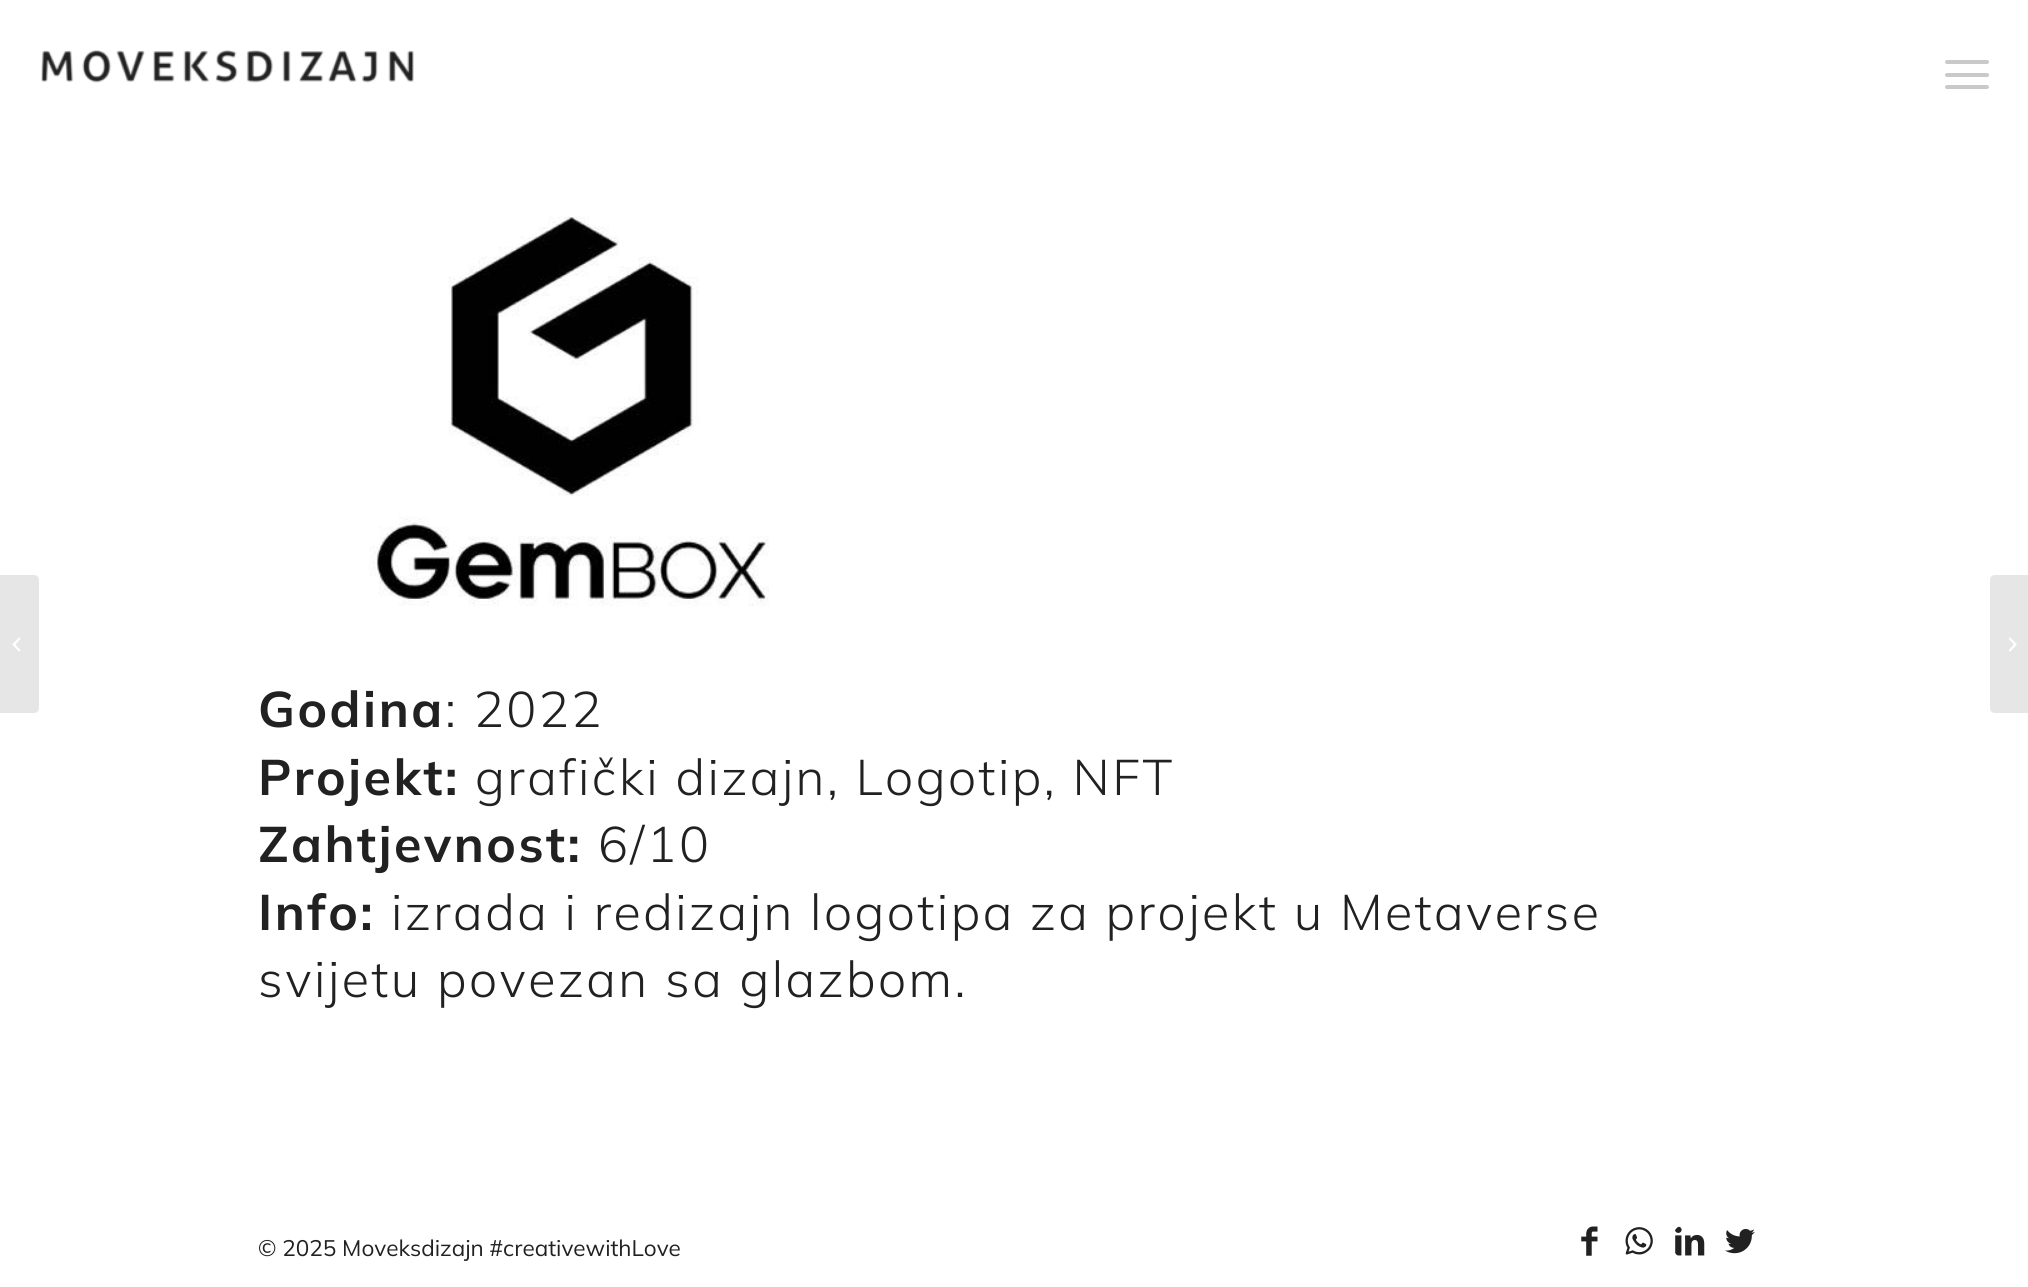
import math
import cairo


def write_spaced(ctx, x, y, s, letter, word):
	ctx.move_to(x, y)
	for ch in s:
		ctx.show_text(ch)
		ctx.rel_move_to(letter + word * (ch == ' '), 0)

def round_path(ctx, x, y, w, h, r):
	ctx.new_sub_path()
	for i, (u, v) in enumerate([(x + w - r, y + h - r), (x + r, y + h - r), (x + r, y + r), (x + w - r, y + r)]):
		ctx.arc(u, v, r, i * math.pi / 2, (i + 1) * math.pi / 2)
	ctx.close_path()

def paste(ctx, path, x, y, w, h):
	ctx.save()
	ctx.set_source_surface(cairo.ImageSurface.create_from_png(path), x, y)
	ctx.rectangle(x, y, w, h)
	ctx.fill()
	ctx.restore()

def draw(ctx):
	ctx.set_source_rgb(1, 1, 1)
	ctx.paint()
	paste(ctx, 'media/1.png', 41, 50, 373, 33)
	ctx.set_source_rgb(0.788, 0.788, 0.788)
	round_path(ctx, 1945, 73, 44, 4, 2)
	ctx.fill()
	round_path(ctx, 1945, 60, 44, 4, 2)
	ctx.fill()
	round_path(ctx, 1945, 85, 44, 4, 2)
	ctx.fill()
	ctx.set_source_rgb(0.902, 0.902, 0.902)
	ctx.new_path()
	ctx.move_to(0, 575)
	ctx.line_to(34, 575)
	ctx.curve_to(37, 575, 39, 577, 39, 580)
	ctx.line_to(39, 708)
	ctx.curve_to(39, 711, 37, 713, 34, 713)
	ctx.line_to(0, 713)
	ctx.close_path()
	ctx.fill()
	paste(ctx, 'media/2.png', 12, 637, 9, 15)
	ctx.new_path()
	ctx.move_to(1995, 575)
	ctx.line_to(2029, 575)
	ctx.line_to(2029, 713)
	ctx.line_to(1995, 713)
	ctx.curve_to(1992, 713, 1990, 711, 1990, 708)
	ctx.line_to(1990, 580)
	ctx.curve_to(1990, 577, 1992, 575, 1995, 575)
	ctx.close_path()
	ctx.fill()
	paste(ctx, 'media/3.png', 2008, 637, 9, 15)
	paste(ctx, 'media/4.png', 369, 216, 400, 390)
	ctx.select_font_face('Mulish', cairo.FONT_SLANT_NORMAL, cairo.FONT_WEIGHT_BOLD)
	ctx.set_font_size(50)
	ctx.set_source_rgb(0.129, 0.129, 0.129)
	write_spaced(ctx, 258, 727, 'Godina', 2.5, 0)
	ctx.select_font_face('Mulish Light')
	write_spaced(ctx, 445, 727, ': 2022', 2.5, 0)
	ctx.select_font_face('Mulish', cairo.FONT_SLANT_NORMAL, cairo.FONT_WEIGHT_BOLD)
	write_spaced(ctx, 258, 795, 'Projekt:', 2.5, 0)
	ctx.select_font_face('Mulish Light')
	write_spaced(ctx, 475, 795, 'grafički dizajn, Logotip, NFT', 2.5, 0)
	ctx.select_font_face('Mulish', cairo.FONT_SLANT_NORMAL, cairo.FONT_WEIGHT_BOLD)
	write_spaced(ctx, 258, 862, 'Zahtjevnost:', 2.5, 0)
	ctx.select_font_face('Mulish Light')
	write_spaced(ctx, 598, 862, '6/10', 2.5, 0)
	ctx.select_font_face('Mulish', cairo.FONT_SLANT_NORMAL, cairo.FONT_WEIGHT_BOLD)
	write_spaced(ctx, 258, 930, 'Info:', 2.5, 0)
	ctx.select_font_face('Mulish Light')
	write_spaced(ctx, 391, 930, 'izrada i redizajn logotipa za projekt u Metaverse', 2.5, 0)
	write_spaced(ctx, 258, 997, 'svijetu povezan sa glazbom.', 2.5, 0)
	ctx.select_font_face('Mulish')
	ctx.set_font_size(22.5)
	ctx.move_to(258, 1256)
	ctx.show_text('© 2025 Moveksdizajn #creativewithLove')
	paste(ctx, 'media/5.png', 1581, 1226, 17, 30)
	paste(ctx, 'media/6.png', 1625, 1227, 28, 28)
	paste(ctx, 'media/7.png', 1675, 1226, 30, 30)
	paste(ctx, 'media/8.png', 1725, 1229, 30, 25)


surface = cairo.ImageSurface(cairo.FORMAT_RGB24, 2028, 1287)
ctx = cairo.Context(surface)
options = cairo.FontOptions()
options.set_hint_metrics(cairo.HINT_METRICS_OFF)
options.set_hint_style(cairo.HINT_STYLE_NONE)
ctx.set_font_options(options)
ctx.set_miter_limit(4)
draw(ctx)
surface.write_to_png('image.png')
